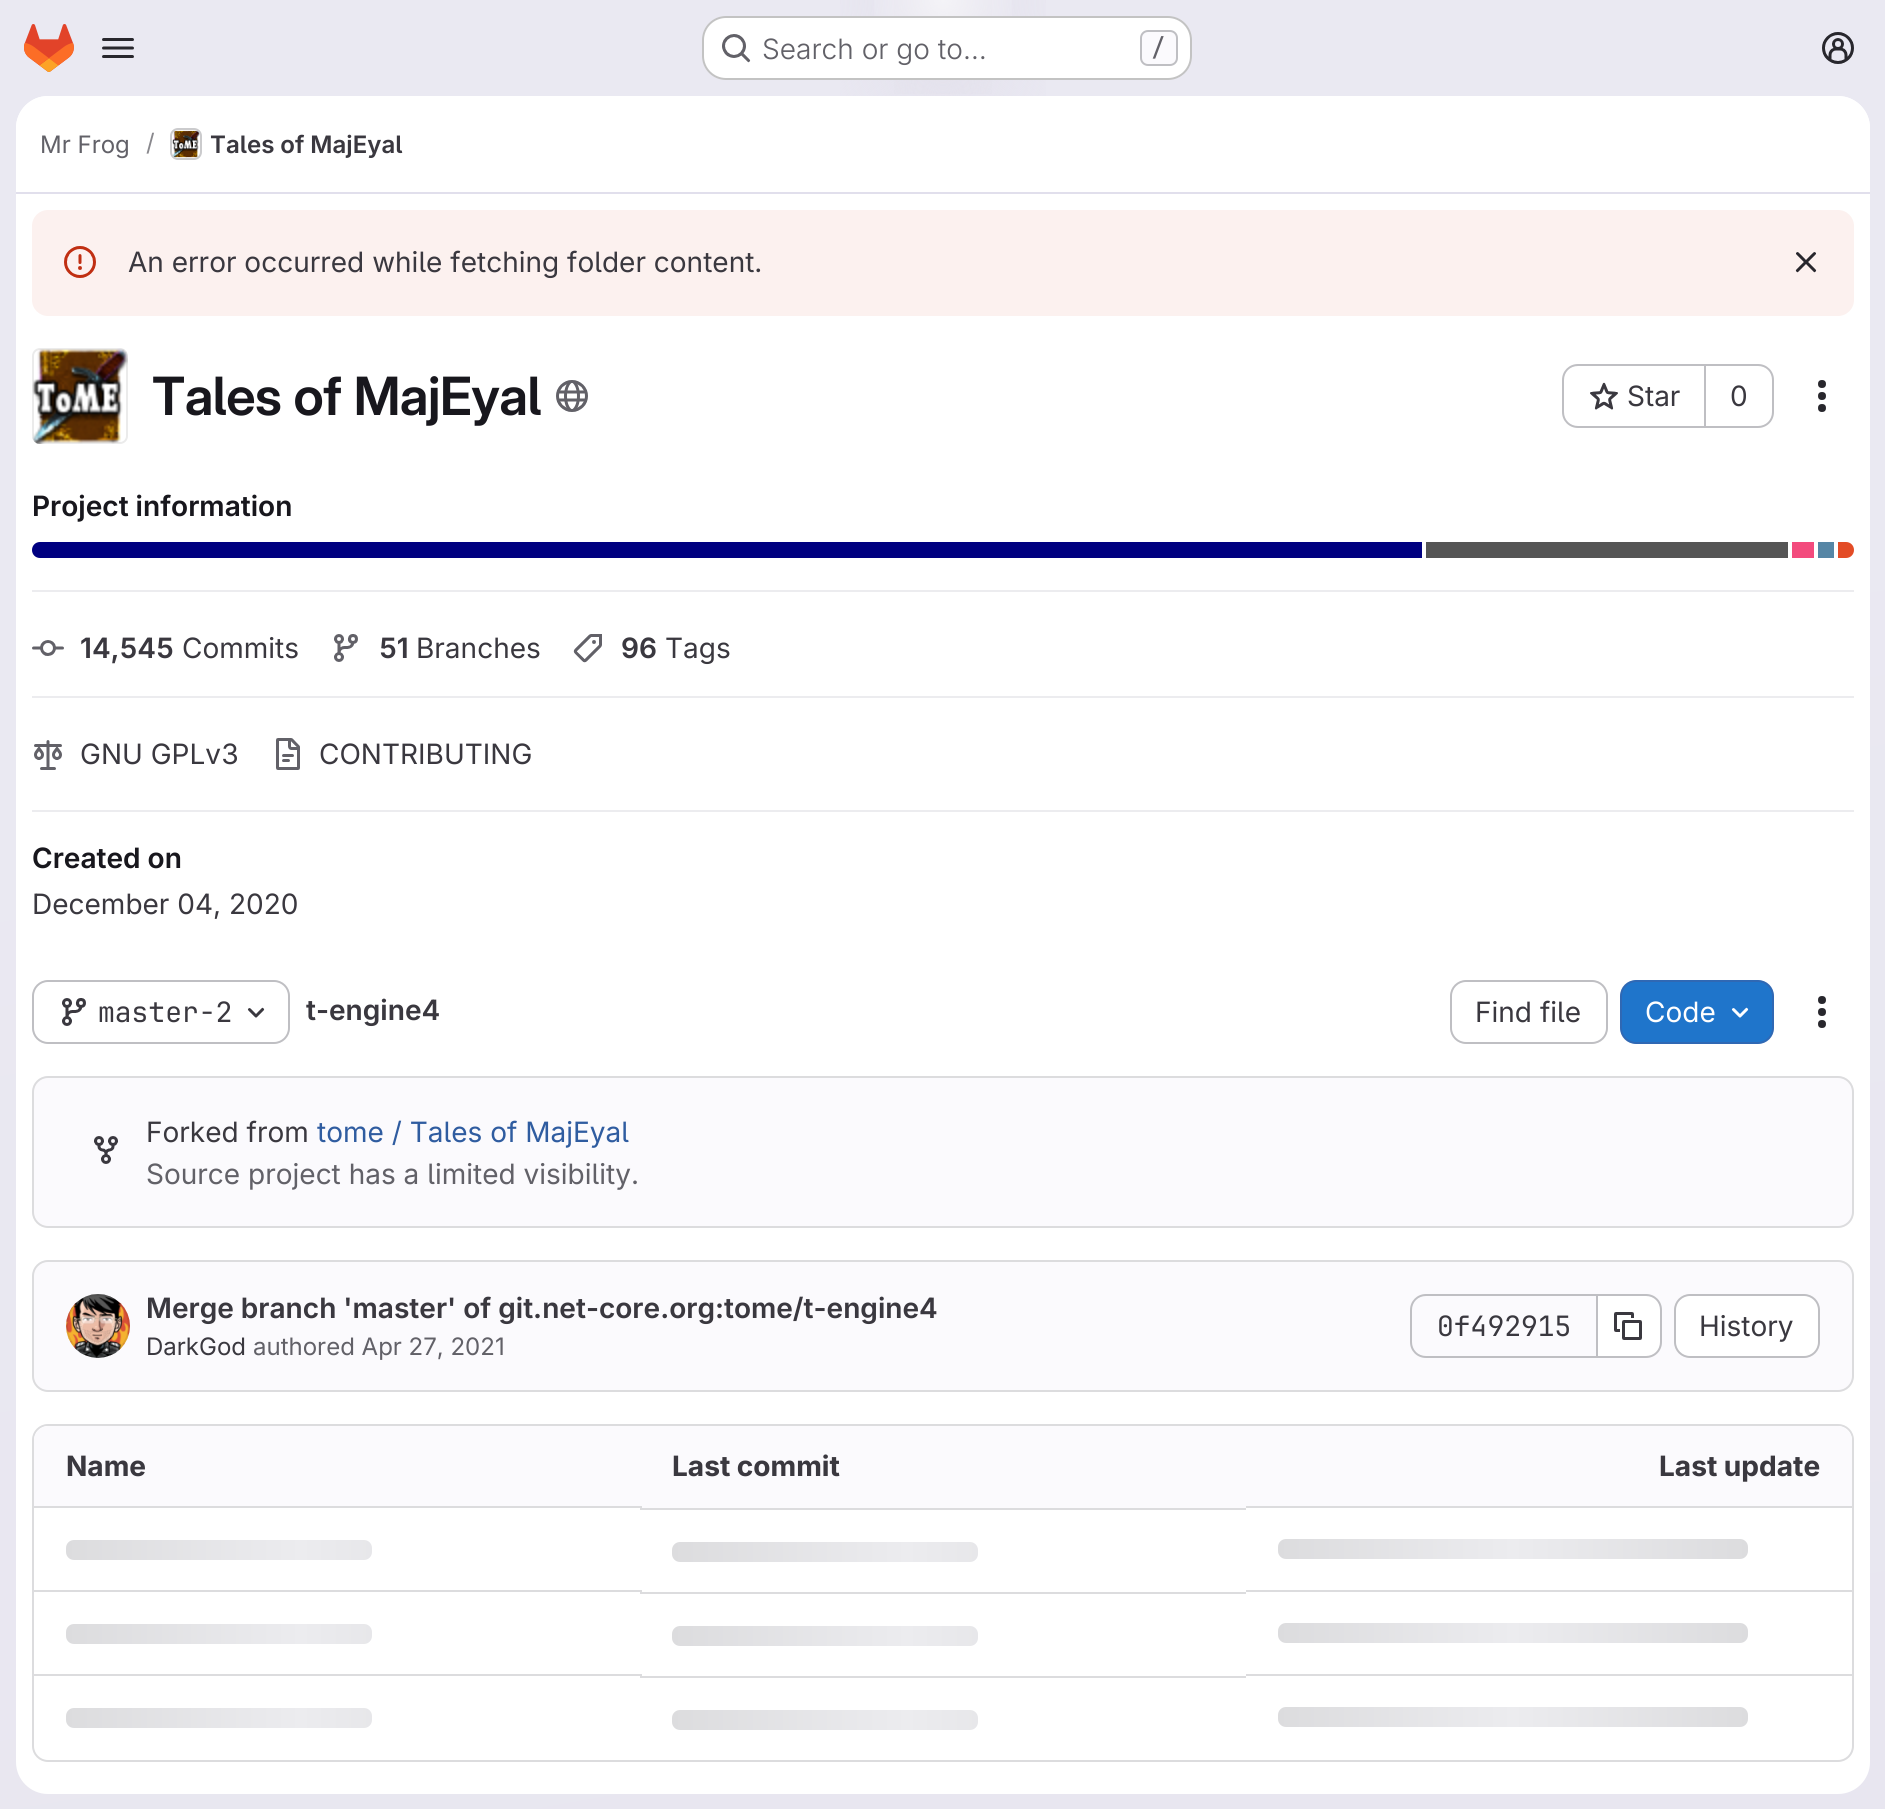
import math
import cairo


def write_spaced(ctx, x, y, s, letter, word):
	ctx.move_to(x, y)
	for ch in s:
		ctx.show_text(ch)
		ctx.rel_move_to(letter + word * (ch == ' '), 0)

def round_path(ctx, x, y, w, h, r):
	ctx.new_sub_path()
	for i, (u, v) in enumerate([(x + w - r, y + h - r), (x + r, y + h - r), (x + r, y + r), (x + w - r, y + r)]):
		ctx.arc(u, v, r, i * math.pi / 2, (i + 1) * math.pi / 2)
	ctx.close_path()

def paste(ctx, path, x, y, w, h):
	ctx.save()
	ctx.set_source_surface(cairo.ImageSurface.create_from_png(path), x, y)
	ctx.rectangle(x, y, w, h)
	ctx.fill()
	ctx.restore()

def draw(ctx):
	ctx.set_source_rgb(1, 1, 1)
	ctx.paint()
	gradient = cairo.LinearGradient(1126, 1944, 760, -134)
	gradient.add_color_stop_rgba(0, 0.91, 0.902, 0.941, 1)
	gradient.add_color_stop_rgba(0.7, 0.918, 0.914, 0.949, 1)
	ctx.set_source(gradient)
	ctx.rectangle(0, 0, 1885, 1809)
	ctx.fill()
	gradient = cairo.RadialGradient(0, 0, 0, 0, 0, 1)
	gradient.set_matrix(cairo.Matrix(1 / 943, 0, 0, 1 / 1810, -1 * 943 / 943, -1 * 0 / 1810))
	gradient.add_color_stop_rgba(0, 0.894, 0.886, 0.929, 1)
	gradient.add_color_stop_rgba(0.15, 0.894, 0.886, 0.929, 0)
	ctx.set_source(gradient)
	ctx.rectangle(840, 0, 206, 96)
	ctx.fill()
	gradient = cairo.RadialGradient(0, 0, 0, 0, 0, 1)
	gradient.set_matrix(cairo.Matrix(1 / 943, 0, 0, 1 / 1810, -1 * 943 / 943, -1 * 0 / 1810))
	gradient.add_color_stop_rgba(0, 0.894, 0.886, 0.925, 1)
	gradient.add_color_stop_rgba(0.11, 0.894, 0.886, 0.925, 0)
	ctx.set_source(gradient)
	ctx.rectangle(894, 0, 98, 94)
	ctx.fill()
	gradient = cairo.RadialGradient(943, 0, 0, 943, 0, 2041)
	gradient.add_color_stop_rgba(0, 1, 1, 1, 0.6)
	gradient.add_color_stop_rgba(0.04, 1, 1, 1, 0)
	ctx.set_source(gradient)
	ctx.rectangle(874, 0, 138, 16)
	ctx.fill()
	paste(ctx, 'media/1.png', 24, 24, 50, 48)
	paste(ctx, 'media/2.png', 102, 38, 32, 20)
	ctx.set_source_rgb(1, 1, 1)
	round_path(ctx, 702, 16, 490, 64, 24)
	ctx.fill()
	round_path(ctx, 703, 17, 488, 62, 23)
	ctx.set_source_rgba(0.02, 0.02, 0.024, 0.24)
	ctx.stroke()
	paste(ctx, 'media/3.png', 722, 34, 29, 29)
	ctx.select_font_face('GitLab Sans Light')
	ctx.set_font_size(28)
	ctx.set_source_rgb(0.384, 0.38, 0.408)
	ctx.move_to(762, 59)
	ctx.show_text('Search or go to…')
	ctx.set_source_rgb(0.984, 0.98, 0.992)
	round_path(ctx, 1141, 31, 36, 34, 7)
	ctx.fill_preserve()
	ctx.set_source_rgb(0.749, 0.749, 0.765)
	ctx.stroke()
	ctx.select_font_face('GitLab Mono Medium')
	ctx.set_font_size(24)
	ctx.set_source_rgb(0.384, 0.38, 0.408)
	ctx.move_to(1151, 56)
	ctx.show_text('/')
	paste(ctx, 'media/4.png', 1822, 32, 32, 32)
	ctx.set_source_rgb(1, 1, 1)
	round_path(ctx, 16, 96, 1854, 1698, 32)
	ctx.fill()
	ctx.new_path()
	ctx.move_to(48, 96)
	ctx.line_to(1838, 96)
	ctx.curve_to(1855.5, 96, 1870, 110.5, 1870, 128)
	ctx.line_to(1870, 194)
	ctx.line_to(16, 194)
	ctx.line_to(16, 128)
	ctx.curve_to(16, 110.5, 30.5, 96, 48, 96)
	ctx.close_path()
	ctx.fill()
	ctx.set_source_rgb(0.882, 0.875, 0.925)
	ctx.rectangle(16, 192, 1854, 2)
	ctx.fill()
	ctx.select_font_face('GitLab Sans')
	ctx.set_source_rgb(0.384, 0.38, 0.408)
	ctx.move_to(40, 153)
	ctx.show_text('Mr Frog')
	ctx.set_source_rgb(0.537, 0.533, 0.553)
	ctx.move_to(146, 151)
	ctx.show_text('/')
	round_path(ctx, 171, 129, 30, 30, 7)
	ctx.set_source_rgb(0.863, 0.863, 0.871)
	ctx.stroke()
	paste(ctx, 'media/5.png', 172, 130, 28, 28)
	round_path(ctx, 171, 129, 30, 30, 7)
	ctx.set_source_rgba(0.02, 0.02, 0.024, 0.08)
	ctx.stroke()
	ctx.select_font_face('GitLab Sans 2 SemiBold')
	ctx.set_source_rgb(0.227, 0.22, 0.247)
	ctx.move_to(210, 153)
	ctx.show_text('Tales of MajEyal')
	ctx.set_source_rgb(0.988, 0.945, 0.937)
	round_path(ctx, 32, 210, 1822, 106, 16)
	ctx.fill()
	paste(ctx, 'media/6.png', 64, 246, 32, 32)
	ctx.select_font_face('GitLab Sans')
	ctx.set_font_size(28)
	ctx.set_source_rgb(0.227, 0.22, 0.247)
	ctx.move_to(128, 272)
	ctx.show_text('An error occurred while fetching folder content.')
	paste(ctx, 'media/7.png', 1795, 252, 22, 21)
	paste(ctx, 'media/8.png', 32, 348, 96, 96)
	round_path(ctx, 33, 349, 94, 94, 7)
	ctx.set_source_rgba(0.02, 0.02, 0.024, 0.08)
	ctx.stroke()
	ctx.select_font_face('GitLab Sans SemiBold')
	ctx.set_font_size(52.75)
	ctx.set_source_rgb(0.094, 0.09, 0.114)
	write_spaced(ctx, 152, 415, 'Tales of MajEyal', -0.5, 1)
	paste(ctx, 'media/9.png', 556, 380, 32, 32)
	ctx.set_source_rgb(0.749, 0.749, 0.765)
	ctx.set_fill_rule(cairo.FILL_RULE_EVEN_ODD)
	ctx.new_path()
	ctx.move_to(1578, 364)
	ctx.line_to(1704, 364)
	ctx.line_to(1704, 428)
	ctx.line_to(1578, 428)
	ctx.curve_to(1569, 428, 1562, 421, 1562, 412)
	ctx.line_to(1562, 380)
	ctx.curve_to(1562, 371, 1569, 364, 1578, 364)
	ctx.close_path()
	ctx.move_to(1578, 366)
	ctx.line_to(1704, 366)
	ctx.line_to(1704, 426)
	ctx.line_to(1578, 426)
	ctx.curve_to(1570, 426, 1564, 420, 1564, 412)
	ctx.line_to(1564, 380)
	ctx.curve_to(1564, 372, 1570, 366, 1578, 366)
	ctx.close_path()
	ctx.fill()
	paste(ctx, 'media/10.png', 1590, 382, 28, 28)
	ctx.select_font_face('GitLab Sans')
	ctx.set_font_size(28)
	ctx.set_source_rgb(0.227, 0.22, 0.247)
	ctx.move_to(1627, 406)
	ctx.show_text('Star')
	ctx.set_source_rgb(0.749, 0.749, 0.765)
	ctx.new_path()
	ctx.move_to(1706, 364)
	ctx.line_to(1758, 364)
	ctx.curve_to(1767, 364, 1774, 371, 1774, 380)
	ctx.line_to(1774, 412)
	ctx.curve_to(1774, 421, 1767, 428, 1758, 428)
	ctx.line_to(1706, 428)
	ctx.close_path()
	ctx.move_to(1706, 366)
	ctx.line_to(1758, 366)
	ctx.curve_to(1766, 366, 1772, 372, 1772, 380)
	ctx.line_to(1772, 412)
	ctx.curve_to(1772, 420, 1766, 426, 1758, 426)
	ctx.line_to(1706, 426)
	ctx.close_path()
	ctx.fill()
	ctx.rectangle(1704, 364, 2, 64)
	ctx.fill()
	ctx.set_source_rgb(0.227, 0.22, 0.247)
	ctx.move_to(1730, 406)
	ctx.show_text('0')
	paste(ctx, 'media/11.png', 1818, 380, 8, 32)
	ctx.set_source_rgb(0.925, 0.925, 0.937)
	ctx.rectangle(32, 590, 1822, 2)
	ctx.fill()
	ctx.select_font_face('GitLab Sans 2 SemiBold')
	ctx.set_source_rgb(0.094, 0.09, 0.114)
	ctx.move_to(32, 516)
	ctx.show_text('Project information')
	ctx.set_source_rgb(0, 0, 0.502)
	ctx.new_path()
	ctx.move_to(40, 542)
	ctx.line_to(1422, 542)
	ctx.line_to(1422, 558)
	ctx.line_to(40, 558)
	ctx.curve_to(35.5, 558, 32, 554.5, 32, 550)
	ctx.curve_to(32, 545.5, 35.5, 542, 40, 542)
	ctx.close_path()
	ctx.fill()
	ctx.set_source_rgb(0.333, 0.333, 0.333)
	ctx.rectangle(1426, 542, 362, 16)
	ctx.fill()
	ctx.set_source_rgb(0.953, 0.294, 0.49)
	ctx.rectangle(1792, 542, 22, 16)
	ctx.fill()
	ctx.set_source_rgb(0.337, 0.525, 0.647)
	ctx.rectangle(1818, 542, 16, 16)
	ctx.fill()
	ctx.set_source_rgb(0.89, 0.298, 0.149)
	ctx.new_path()
	ctx.move_to(1838, 542)
	ctx.line_to(1846, 542)
	ctx.curve_to(1850.5, 542, 1854, 545.5, 1854, 550)
	ctx.curve_to(1854, 554.5, 1850.5, 558, 1846, 558)
	ctx.line_to(1838, 558)
	ctx.close_path()
	ctx.fill()
	ctx.set_source_rgb(0.925, 0.925, 0.937)
	ctx.rectangle(32, 696, 1822, 2)
	ctx.fill()
	paste(ctx, 'media/12.png', 32, 640, 32, 16)
	ctx.set_source_rgb(0.227, 0.22, 0.247)
	ctx.move_to(80, 658)
	ctx.show_text('14,545')
	ctx.select_font_face('GitLab Sans')
	ctx.move_to(182, 658)
	ctx.show_text('Commits')
	paste(ctx, 'media/13.png', 334, 634, 24, 28)
	ctx.select_font_face('GitLab Sans 2 SemiBold')
	ctx.move_to(379, 658)
	ctx.show_text('51')
	ctx.select_font_face('GitLab Sans')
	ctx.move_to(416, 658)
	ctx.show_text('Branches')
	paste(ctx, 'media/14.png', 573, 634, 29, 29)
	ctx.select_font_face('GitLab Sans 2 SemiBold')
	ctx.move_to(621, 658)
	ctx.show_text('96')
	ctx.select_font_face('GitLab Sans')
	ctx.move_to(665, 658)
	ctx.show_text('Tags')
	ctx.set_source_rgb(0.925, 0.925, 0.937)
	ctx.rectangle(32, 810, 1822, 2)
	ctx.fill()
	paste(ctx, 'media/15.png', 34, 740, 28, 30)
	ctx.set_source_rgb(0.227, 0.22, 0.247)
	ctx.move_to(80, 764)
	ctx.show_text('GNU GPLv3')
	paste(ctx, 'media/16.png', 276, 738, 24, 32)
	ctx.move_to(319, 764)
	ctx.show_text('CONTRIBUTING')
	ctx.select_font_face('GitLab Sans 2 SemiBold')
	ctx.set_source_rgb(0.094, 0.09, 0.114)
	ctx.move_to(32, 868)
	ctx.show_text('Created on')
	ctx.select_font_face('GitLab Sans')
	ctx.set_source_rgb(0.227, 0.22, 0.247)
	ctx.move_to(32, 914)
	ctx.show_text('December 04, 2020')
	round_path(ctx, 33, 981, 256, 62, 15)
	ctx.set_source_rgb(0.749, 0.749, 0.765)
	ctx.stroke()
	paste(ctx, 'media/17.png', 62, 998, 24, 28)
	ctx.select_font_face('GitLab Mono')
	ctx.set_source_rgb(0.227, 0.22, 0.247)
	ctx.move_to(98, 1022)
	ctx.show_text('master-2')
	paste(ctx, 'media/18.png', 247, 1007, 18, 11)
	ctx.select_font_face('GitLab Sans 2 SemiBold')
	ctx.move_to(306, 1020)
	ctx.show_text('t-engine4')
	round_path(ctx, 1451, 981, 156, 62, 15)
	ctx.set_source_rgb(0.749, 0.749, 0.765)
	ctx.stroke()
	ctx.select_font_face('GitLab Sans')
	ctx.set_source_rgb(0.227, 0.22, 0.247)
	ctx.move_to(1475, 1022)
	ctx.show_text('Find file')
	ctx.set_source_rgb(0.122, 0.459, 0.796)
	round_path(ctx, 1621, 981, 152, 62, 15)
	ctx.fill_preserve()
	ctx.set_source_rgb(0.184, 0.408, 0.706)
	ctx.stroke()
	ctx.set_source_rgb(1, 1, 1)
	ctx.move_to(1645, 1022)
	ctx.show_text('Code')
	paste(ctx, 'media/19.png', 1731, 1007, 18, 11)
	paste(ctx, 'media/11.png', 1818, 996, 8, 32)
	ctx.set_source_rgb(0.984, 0.98, 0.992)
	round_path(ctx, 33, 1077, 1820, 150, 15)
	ctx.fill_preserve()
	ctx.set_source_rgb(0.863, 0.863, 0.871)
	ctx.stroke()
	paste(ctx, 'media/20.png', 94, 1136, 24, 28)
	ctx.set_source_rgb(0.227, 0.22, 0.247)
	ctx.move_to(146, 1142)
	ctx.show_text('Forked from')
	ctx.set_source_rgb(0.184, 0.361, 0.627)
	ctx.move_to(317, 1142)
	ctx.show_text('tome / Tales of MajEyal')
	ctx.set_source_rgb(0.384, 0.38, 0.408)
	ctx.move_to(146, 1184)
	ctx.show_text('Source project has a limited visibility.')
	ctx.set_source_rgb(0.984, 0.98, 0.992)
	round_path(ctx, 33, 1261, 1820, 130, 15)
	ctx.fill_preserve()
	ctx.set_source_rgb(0.863, 0.863, 0.871)
	ctx.stroke()
	paste(ctx, 'media/21.png', 66, 1294, 64, 64)
	ctx.arc(98, 1326, 31, 0, 2 * math.pi)
	ctx.set_source_rgba(0.02, 0.02, 0.024, 0.08)
	ctx.stroke()
	ctx.select_font_face('GitLab Sans 2 SemiBold')
	ctx.set_source_rgb(0.227, 0.22, 0.247)
	ctx.move_to(146, 1318)
	ctx.show_text('Merge branch \'master\' of git.net-core.org:tome/t-engine4')
	ctx.select_font_face('GitLab Sans')
	ctx.set_font_size(24)
	ctx.move_to(146, 1355)
	ctx.show_text('DarkGod')
	ctx.set_source_rgb(0.384, 0.38, 0.408)
	ctx.move_to(253, 1355)
	ctx.show_text('authored Apr 27, 2021')
	ctx.set_source_rgb(0.749, 0.749, 0.765)
	ctx.new_path()
	ctx.move_to(1426, 1294)
	ctx.line_to(1596, 1294)
	ctx.line_to(1596, 1358)
	ctx.line_to(1426, 1358)
	ctx.curve_to(1417, 1358, 1410, 1351, 1410, 1342)
	ctx.line_to(1410, 1310)
	ctx.curve_to(1410, 1301, 1417, 1294, 1426, 1294)
	ctx.close_path()
	ctx.move_to(1426, 1296)
	ctx.line_to(1596, 1296)
	ctx.line_to(1596, 1356)
	ctx.line_to(1426, 1356)
	ctx.curve_to(1418, 1356, 1412, 1350, 1412, 1342)
	ctx.line_to(1412, 1310)
	ctx.curve_to(1412, 1302, 1418, 1296, 1426, 1296)
	ctx.close_path()
	ctx.fill()
	ctx.select_font_face('GitLab Mono')
	ctx.set_font_size(28)
	ctx.set_source_rgb(0.227, 0.22, 0.247)
	ctx.move_to(1437, 1336)
	ctx.show_text('0f492915')
	ctx.set_source_rgb(1, 1, 1)
	ctx.new_path()
	ctx.move_to(1598, 1296)
	ctx.line_to(1646, 1296)
	ctx.curve_to(1653.5, 1296, 1660, 1302.5, 1660, 1310)
	ctx.line_to(1660, 1342)
	ctx.curve_to(1660, 1349.5, 1653.5, 1356, 1646, 1356)
	ctx.line_to(1598, 1356)
	ctx.close_path()
	ctx.fill()
	ctx.set_source_rgb(0.749, 0.749, 0.765)
	ctx.new_path()
	ctx.move_to(1598, 1294)
	ctx.line_to(1646, 1294)
	ctx.curve_to(1655, 1294, 1662, 1301, 1662, 1310)
	ctx.line_to(1662, 1342)
	ctx.curve_to(1662, 1351, 1655, 1358, 1646, 1358)
	ctx.line_to(1598, 1358)
	ctx.close_path()
	ctx.move_to(1598, 1296)
	ctx.line_to(1646, 1296)
	ctx.curve_to(1654, 1296, 1660, 1302, 1660, 1310)
	ctx.line_to(1660, 1342)
	ctx.curve_to(1660, 1350, 1654, 1356, 1646, 1356)
	ctx.line_to(1598, 1356)
	ctx.close_path()
	ctx.fill()
	ctx.rectangle(1596, 1294, 2, 64)
	ctx.fill()
	paste(ctx, 'media/22.png', 1614, 1312, 28, 28)
	ctx.set_source_rgb(1, 1, 1)
	round_path(ctx, 1675, 1295, 144, 62, 15)
	ctx.fill_preserve()
	ctx.set_source_rgb(0.749, 0.749, 0.765)
	ctx.stroke()
	ctx.select_font_face('GitLab Sans')
	ctx.set_source_rgb(0.227, 0.22, 0.247)
	ctx.move_to(1699, 1336)
	ctx.show_text('History')
	round_path(ctx, 33, 1425, 1820, 336, 15)
	ctx.set_source_rgb(0.863, 0.863, 0.871)
	ctx.stroke()
	ctx.set_source_rgb(0.984, 0.98, 0.992)
	ctx.new_path()
	ctx.move_to(48, 1426)
	ctx.line_to(640, 1426)
	ctx.line_to(640, 1508)
	ctx.line_to(34, 1508)
	ctx.line_to(34, 1440)
	ctx.curve_to(34, 1432.5, 40.5, 1426, 48, 1426)
	ctx.close_path()
	ctx.fill()
	ctx.select_font_face('GitLab Sans', cairo.FONT_SLANT_NORMAL, cairo.FONT_WEIGHT_BOLD)
	ctx.set_source_rgb(0.227, 0.22, 0.247)
	ctx.move_to(66, 1476)
	ctx.show_text('Name')
	ctx.set_source_rgb(0.984, 0.98, 0.992)
	ctx.rectangle(640, 1426, 606, 82)
	ctx.fill()
	ctx.set_source_rgb(0.227, 0.22, 0.247)
	ctx.move_to(672, 1476)
	ctx.show_text('Last commit')
	ctx.set_source_rgb(0.984, 0.98, 0.992)
	ctx.new_path()
	ctx.move_to(1246, 1426)
	ctx.line_to(1838, 1426)
	ctx.curve_to(1845.5, 1426, 1852, 1432.5, 1852, 1440)
	ctx.line_to(1852, 1508)
	ctx.line_to(1246, 1508)
	ctx.close_path()
	ctx.fill()
	ctx.set_source_rgb(0.227, 0.22, 0.247)
	ctx.move_to(1659, 1476)
	ctx.show_text('Last update')
	ctx.set_source_rgb(0.863, 0.863, 0.871)
	ctx.rectangle(34, 1506, 608, 2)
	ctx.fill()
	gradient = cairo.LinearGradient(66, 1540, 536, 1540)
	gradient.add_color_stop_rgba(0, 0.863, 0.863, 0.871, 1)
	gradient.add_color_stop_rgba(0.5, 0.925, 0.925, 0.937, 1)
	gradient.add_color_stop_rgba(1, 0.863, 0.863, 0.871, 1)
	ctx.set_source(gradient)
	round_path(ctx, 66, 1540, 306, 20, 8)
	ctx.fill()
	ctx.set_source_rgb(0.863, 0.863, 0.871)
	ctx.rectangle(640, 1508, 606, 2)
	ctx.fill()
	gradient = cairo.LinearGradient(672, 1542, 1142, 1542)
	gradient.add_color_stop_rgba(0, 0.863, 0.863, 0.871, 1)
	gradient.add_color_stop_rgba(0.5, 0.925, 0.925, 0.937, 1)
	gradient.add_color_stop_rgba(1, 0.863, 0.863, 0.871, 1)
	ctx.set_source(gradient)
	round_path(ctx, 672, 1542, 306, 20, 8)
	ctx.fill()
	ctx.set_source_rgb(0.863, 0.863, 0.871)
	ctx.rectangle(1246, 1506, 606, 2)
	ctx.fill()
	gradient = cairo.LinearGradient(1278, 1539, 1748, 1539)
	gradient.add_color_stop_rgba(0, 0.863, 0.863, 0.871, 1)
	gradient.add_color_stop_rgba(0.5, 0.925, 0.925, 0.937, 1)
	gradient.add_color_stop_rgba(1, 0.863, 0.863, 0.871, 1)
	ctx.set_source(gradient)
	round_path(ctx, 1278, 1539, 470, 20, 8)
	ctx.fill()
	ctx.set_source_rgb(0.863, 0.863, 0.871)
	ctx.rectangle(34, 1590, 608, 2)
	ctx.fill()
	gradient = cairo.LinearGradient(66, 1624, 536, 1624)
	gradient.add_color_stop_rgba(0, 0.863, 0.863, 0.871, 1)
	gradient.add_color_stop_rgba(0.5, 0.925, 0.925, 0.937, 1)
	gradient.add_color_stop_rgba(1, 0.863, 0.863, 0.871, 1)
	ctx.set_source(gradient)
	round_path(ctx, 66, 1624, 306, 20, 8)
	ctx.fill()
	ctx.set_source_rgb(0.863, 0.863, 0.871)
	ctx.rectangle(640, 1592, 606, 2)
	ctx.fill()
	gradient = cairo.LinearGradient(672, 1626, 1142, 1626)
	gradient.add_color_stop_rgba(0, 0.863, 0.863, 0.871, 1)
	gradient.add_color_stop_rgba(0.5, 0.925, 0.925, 0.937, 1)
	gradient.add_color_stop_rgba(1, 0.863, 0.863, 0.871, 1)
	ctx.set_source(gradient)
	round_path(ctx, 672, 1626, 306, 20, 8)
	ctx.fill()
	ctx.set_source_rgb(0.863, 0.863, 0.871)
	ctx.rectangle(1246, 1590, 606, 2)
	ctx.fill()
	gradient = cairo.LinearGradient(1278, 1623, 1748, 1623)
	gradient.add_color_stop_rgba(0, 0.863, 0.863, 0.871, 1)
	gradient.add_color_stop_rgba(0.5, 0.925, 0.925, 0.937, 1)
	gradient.add_color_stop_rgba(1, 0.863, 0.863, 0.871, 1)
	ctx.set_source(gradient)
	round_path(ctx, 1278, 1623, 470, 20, 8)
	ctx.fill()
	ctx.set_source_rgb(0.863, 0.863, 0.871)
	ctx.rectangle(34, 1674, 608, 2)
	ctx.fill()
	gradient = cairo.LinearGradient(66, 1708, 536, 1708)
	gradient.add_color_stop_rgba(0, 0.863, 0.863, 0.871, 1)
	gradient.add_color_stop_rgba(0.5, 0.925, 0.925, 0.937, 1)
	gradient.add_color_stop_rgba(1, 0.863, 0.863, 0.871, 1)
	ctx.set_source(gradient)
	round_path(ctx, 66, 1708, 306, 20, 8)
	ctx.fill()
	ctx.set_source_rgb(0.863, 0.863, 0.871)
	ctx.rectangle(640, 1676, 606, 2)
	ctx.fill()
	gradient = cairo.LinearGradient(672, 1710, 1142, 1710)
	gradient.add_color_stop_rgba(0, 0.863, 0.863, 0.871, 1)
	gradient.add_color_stop_rgba(0.5, 0.925, 0.925, 0.937, 1)
	gradient.add_color_stop_rgba(1, 0.863, 0.863, 0.871, 1)
	ctx.set_source(gradient)
	round_path(ctx, 672, 1710, 306, 20, 8)
	ctx.fill()
	ctx.set_source_rgb(0.863, 0.863, 0.871)
	ctx.rectangle(1246, 1674, 606, 2)
	ctx.fill()
	gradient = cairo.LinearGradient(1278, 1707, 1748, 1707)
	gradient.add_color_stop_rgba(0, 0.863, 0.863, 0.871, 1)
	gradient.add_color_stop_rgba(0.5, 0.925, 0.925, 0.937, 1)
	gradient.add_color_stop_rgba(1, 0.863, 0.863, 0.871, 1)
	ctx.set_source(gradient)
	round_path(ctx, 1278, 1707, 470, 20, 8)
	ctx.fill()


surface = cairo.ImageSurface(cairo.FORMAT_RGB24, 1885, 1809)
ctx = cairo.Context(surface)
options = cairo.FontOptions()
options.set_hint_metrics(cairo.HINT_METRICS_OFF)
options.set_hint_style(cairo.HINT_STYLE_NONE)
ctx.set_font_options(options)
ctx.set_miter_limit(4)
draw(ctx)
surface.write_to_png('image.png')
